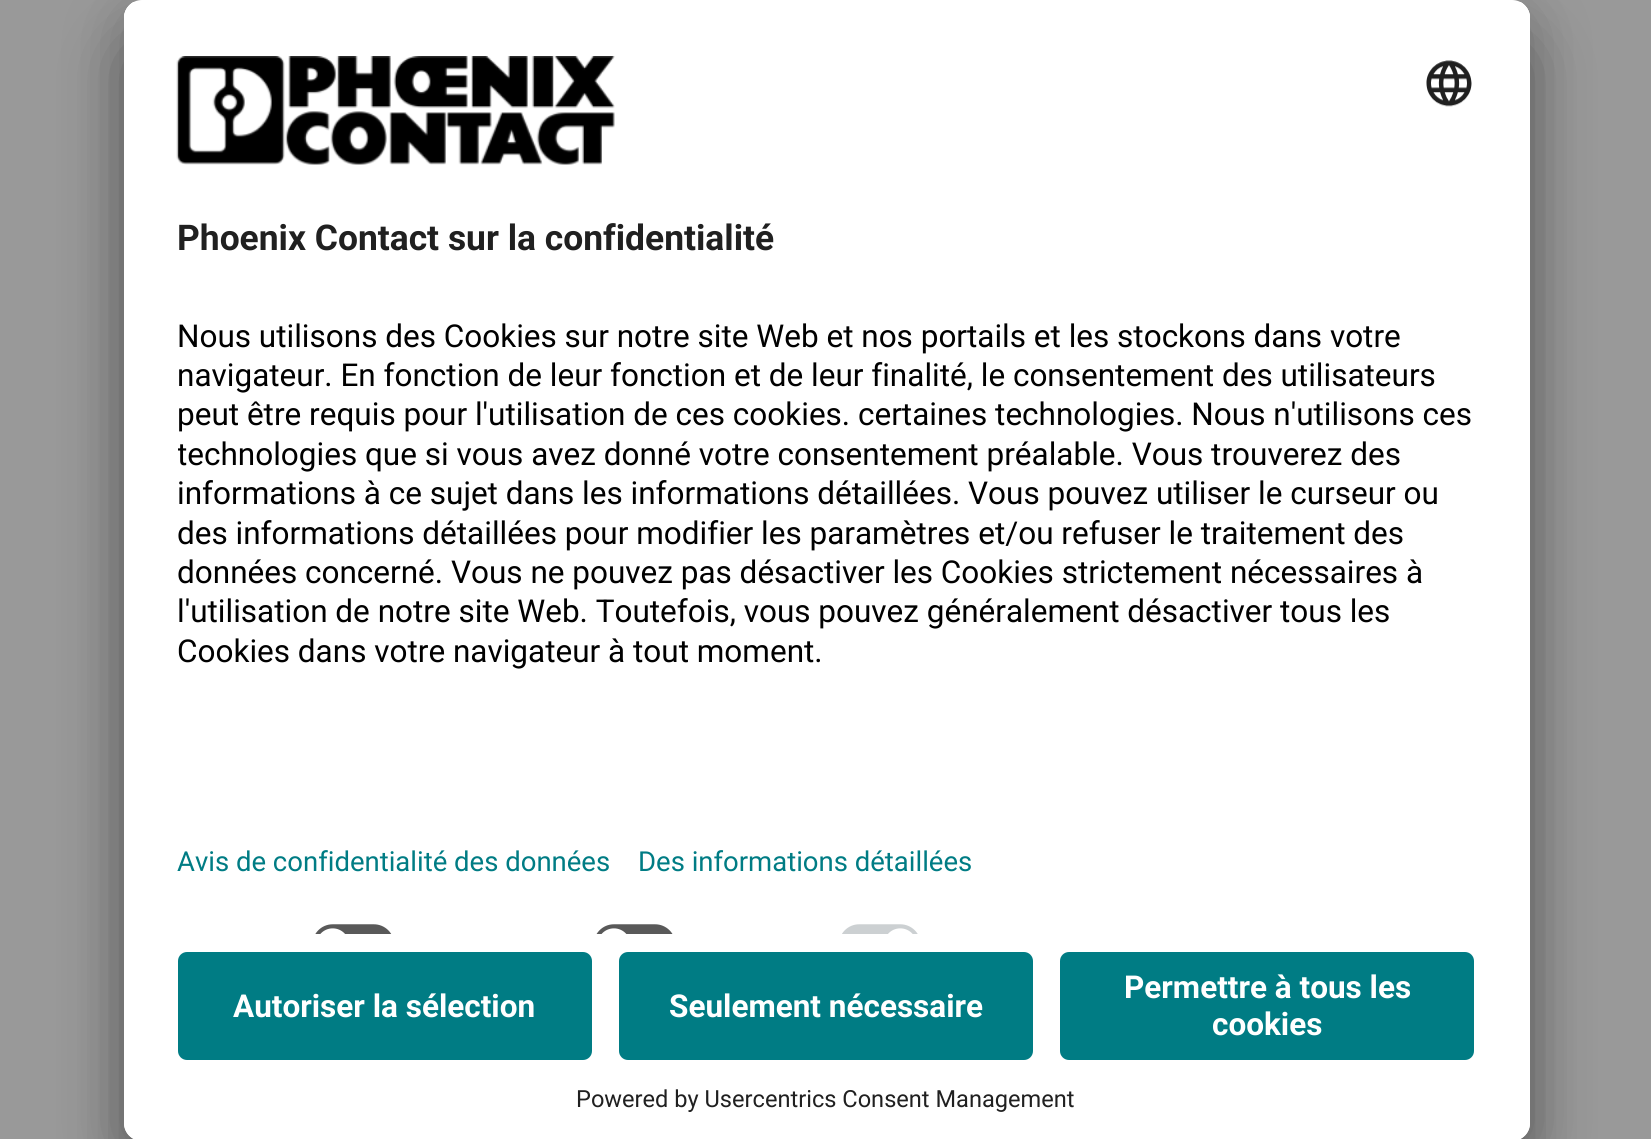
import math
import cairo


def round_path(ctx, x, y, w, h, r):
	ctx.new_sub_path()
	for i, (u, v) in enumerate([(x + w - r, y + h - r), (x + r, y + h - r), (x + r, y + r), (x + w - r, y + r)]):
		ctx.arc(u, v, r, i * math.pi / 2, (i + 1) * math.pi / 2)
	ctx.close_path()

def blur_box(ctx, x, y, w, h, r, blur, alpha):
	ctx.push_group_with_content(cairo.CONTENT_ALPHA)
	ctx.set_operator(cairo.OPERATOR_SOURCE)
	for i in range(15, -16, -2):
		e = blur * i / 6
		if min(w, h) + 2 * e > 0:
			ctx.set_source_rgba(0, 0, 0, alpha * math.erfc((i - 1) / 8.5) / 2)
			round_path(ctx, x - e, y - e, w + 2 * e, h + 2 * e, max(0, min(r + e + blur * .6, min(w, h) / 2 + e)))
			ctx.fill()
	ctx.mask(ctx.pop_group())

def paste(ctx, path, x, y, w, h):
	ctx.save()
	ctx.set_source_surface(cairo.ImageSurface.create_from_png(path), x, y)
	ctx.rectangle(x, y, w, h)
	ctx.fill()
	ctx.restore()

def draw(ctx):
	ctx.set_source_rgb(0.6, 0.6, 0.6)
	ctx.paint()
	ctx.set_source_rgb(0, 0, 0)
	blur_box(ctx, 124, 45, 1406, 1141, 18, 31.5, 0.3)
	blur_box(ctx, 124, 11, 1406, 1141, 18, 29, 0.22)
	ctx.set_source_rgb(1, 1, 1)
	round_path(ctx, 124, 0, 1406, 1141, 18)
	ctx.fill()
	ctx.save()
	round_path(ctx, 124, 0, 1406, 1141, 18)
	ctx.clip()
	ctx.new_path()
	ctx.move_to(142, 0)
	ctx.line_to(1512, 0)
	ctx.curve_to(1522, 0, 1530, 8, 1530, 18)
	ctx.line_to(1530, 934)
	ctx.line_to(124, 934)
	ctx.line_to(124, 18)
	ctx.curve_to(124, 8, 132, 0, 142, 0)
	ctx.close_path()
	ctx.clip()
	ctx.rectangle(124, 2, 1406, 932)
	ctx.fill()
	ctx.rectangle(124, 2, 1406, 912)
	ctx.fill()
	ctx.restore()
	paste(ctx, 'media/1.png', 176, 56, 439, 109)
	paste(ctx, 'media/2.png', 1426, 60, 46, 47)
	ctx.select_font_face('Roboto', cairo.FONT_SLANT_NORMAL, cairo.FONT_WEIGHT_BOLD)
	ctx.set_font_size(35.4)
	ctx.set_source_rgb(0.125, 0.125, 0.125)
	ctx.move_to(177, 250)
	ctx.show_text('Phoenix Contact sur la confidentialité')
	ctx.select_font_face('Roboto')
	ctx.set_font_size(31.5)
	ctx.set_source_rgb(0, 0, 0)
	for x, y, s in [
		(177, 347, 'Nous utilisons des Cookies sur notre site Web et nos portails et les stockons dans votre'),
		(177, 386, 'navigateur. En fonction de leur fonction et de leur finalité, le consentement des utilisateurs'),
		(177, 425, 'peut être requis pour l\'utilisation de ces cookies. certaines technologies. Nous n\'utilisons ces'),
	]:
		ctx.move_to(x, y)
		ctx.show_text(s)
	ctx.save()
	ctx.rectangle(178, 277, 1298, 506)
	ctx.clip()
	ctx.move_to(177, 465)
	ctx.show_text('technologies que si vous avez donné votre consentement préalable. Vous trouverez des')
	ctx.restore()
	for x, y, s in [
		(177, 504, 'informations à ce sujet dans les informations détaillées. Vous pouvez utiliser le curseur ou'),
		(177, 544, 'des informations détaillées pour modifier les paramètres et/ou refuser le traitement des'),
		(177, 583, 'données concerné. Vous ne pouvez pas désactiver les Cookies strictement nécessaires à'),
		(177, 622, 'l\'utilisation de notre site Web. Toutefois, vous pouvez généralement désactiver tous les'),
		(177, 662, 'Cookies dans votre navigateur à tout moment.'),
	]:
		ctx.move_to(x, y)
		ctx.show_text(s)
	ctx.set_font_size(27.5)
	ctx.set_source_rgb(0, 0.486, 0.518)
	ctx.move_to(177, 871)
	ctx.show_text('Avis de confidentialité des données')
	ctx.move_to(638, 871)
	ctx.show_text('Des informations détaillées')
	paste(ctx, 'media/3.png', 315, 924, 77, 10)
	paste(ctx, 'media/4.png', 596, 924, 77, 10)
	paste(ctx, 'media/5.png', 842, 924, 76, 10)
	ctx.set_source_rgb(1, 1, 1)
	ctx.new_path()
	ctx.move_to(124, 934)
	ctx.line_to(1530, 934)
	ctx.line_to(1530, 1123)
	ctx.curve_to(1530, 1133, 1522, 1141, 1512, 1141)
	ctx.line_to(142, 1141)
	ctx.curve_to(132, 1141, 124, 1133, 124, 1123)
	ctx.close_path()
	ctx.fill()
	ctx.set_source_rgb(0, 0.486, 0.518)
	round_path(ctx, 178, 952, 414, 108, 9)
	ctx.fill()
	ctx.select_font_face('Roboto', cairo.FONT_SLANT_NORMAL, cairo.FONT_WEIGHT_BOLD)
	ctx.set_font_size(31.5)
	ctx.set_source_rgb(1, 1, 1)
	ctx.move_to(233, 1017)
	ctx.show_text('Autoriser la sélection')
	ctx.set_source_rgb(0, 0.486, 0.518)
	round_path(ctx, 619, 952, 414, 108, 9)
	ctx.fill()
	ctx.set_source_rgb(1, 1, 1)
	ctx.move_to(669, 1017)
	ctx.show_text('Seulement nécessaire')
	ctx.set_source_rgb(0, 0.486, 0.518)
	round_path(ctx, 1060, 952, 414, 108, 9)
	ctx.fill()
	ctx.set_source_rgb(1, 1, 1)
	ctx.move_to(1124, 998)
	ctx.show_text('Permettre à tous les')
	ctx.move_to(1212, 1035)
	ctx.show_text('cookies')
	ctx.select_font_face('Roboto')
	ctx.set_font_size(23.6)
	ctx.set_source_rgb(0.125, 0.125, 0.125)
	ctx.move_to(576, 1107)
	ctx.show_text('Powered by Usercentrics Consent Management')


surface = cairo.ImageSurface(cairo.FORMAT_RGB24, 1651, 1139)
ctx = cairo.Context(surface)
options = cairo.FontOptions()
options.set_hint_metrics(cairo.HINT_METRICS_OFF)
options.set_hint_style(cairo.HINT_STYLE_NONE)
ctx.set_font_options(options)
ctx.set_miter_limit(4)
draw(ctx)
surface.write_to_png('image.png')
